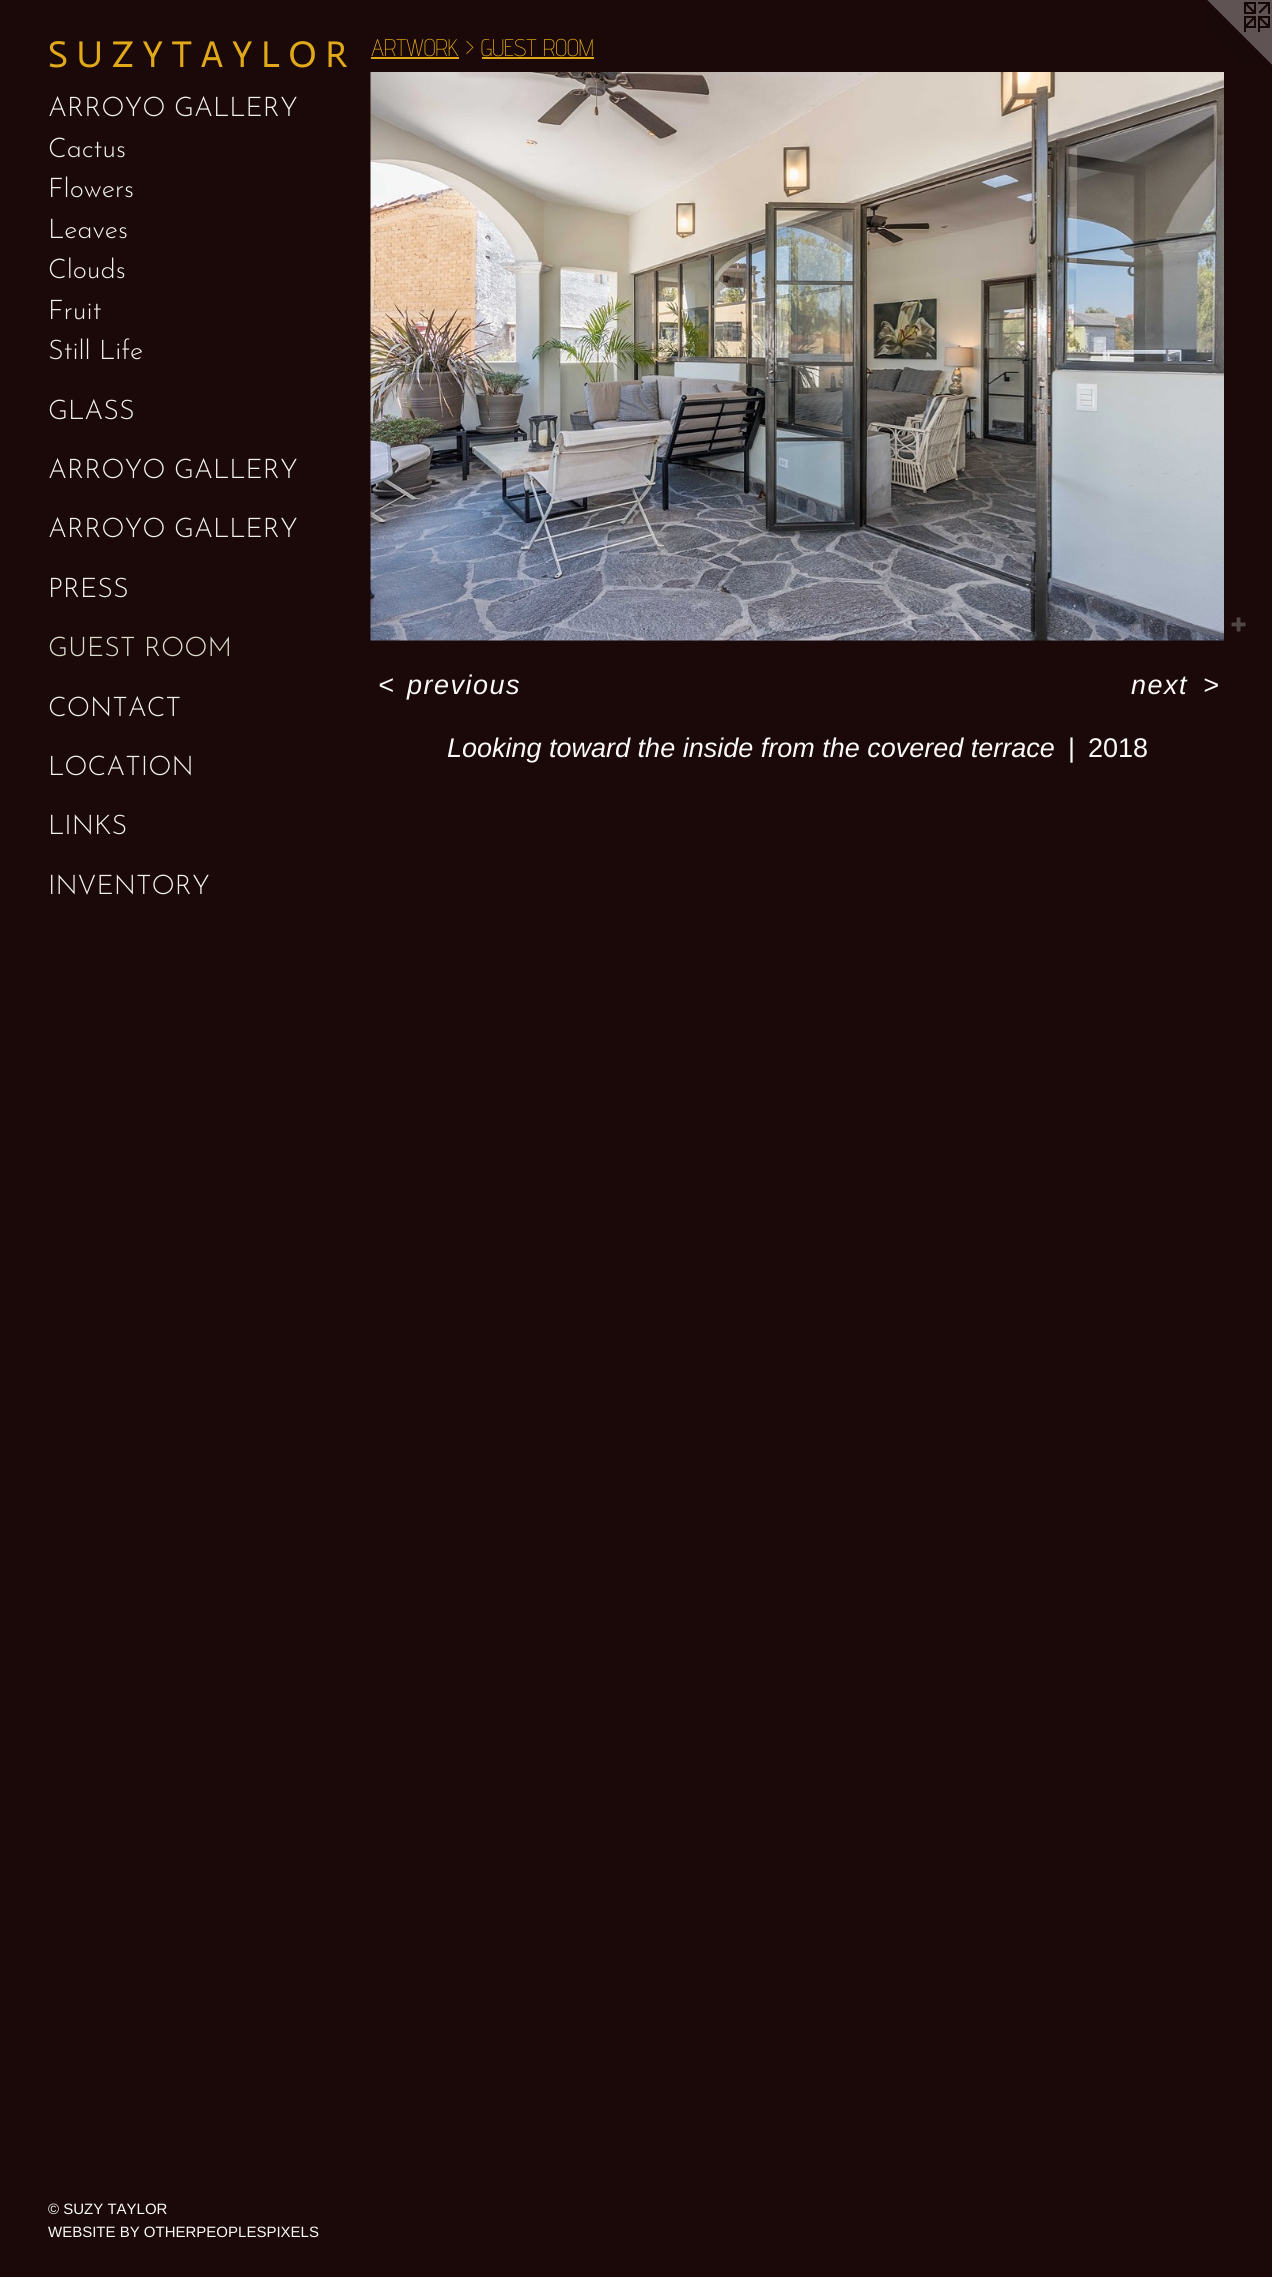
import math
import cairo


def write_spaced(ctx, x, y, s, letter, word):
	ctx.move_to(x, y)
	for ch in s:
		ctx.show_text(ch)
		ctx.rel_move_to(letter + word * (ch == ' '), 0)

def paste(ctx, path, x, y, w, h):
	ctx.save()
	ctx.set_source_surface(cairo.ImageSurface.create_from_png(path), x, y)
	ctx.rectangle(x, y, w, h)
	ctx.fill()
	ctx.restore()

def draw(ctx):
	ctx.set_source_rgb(0.102, 0.039, 0.035)
	ctx.paint()
	ctx.select_font_face('Actor')
	ctx.set_font_size(37.5)
	ctx.set_source_rgb(0.882, 0.663, 0.098)
	ctx.move_to(48, 67)
	ctx.show_text('S U Z Y T A Y L O R')
	ctx.select_font_face('Josefin Sans Thin')
	ctx.set_font_size(27)
	ctx.set_source_rgb(0.949, 0.949, 0.929)
	for x, y, s in [
		(48, 116, 'ARROYO GALLERY'),
		(48, 157, 'Cactus'),
		(48, 197, 'Flowers'),
		(48, 238, 'Leaves'),
		(48, 278, 'Clouds'),
		(48, 319, 'Fruit'),
		(48, 359, 'Still Life'),
		(48, 419, 'GLASS'),
		(48, 478, 'ARROYO GALLERY'),
		(48, 537, 'ARROYO GALLERY'),
		(48, 597, 'PRESS'),
	]:
		ctx.move_to(x, y)
		ctx.show_text(s)
	ctx.set_source_rgb(0.867, 0.867, 0.812)
	ctx.move_to(48, 656)
	ctx.show_text('GUEST ROOM')
	ctx.set_source_rgb(0.949, 0.949, 0.929)
	for x, y, s in [
		(48, 716, 'CONTACT'),
		(48, 775, 'LOCATION'),
		(48, 834, 'LINKS'),
		(48, 894, 'INVENTORY'),
	]:
		ctx.move_to(x, y)
		ctx.show_text(s)
	ctx.select_font_face('Liberation Sans')
	ctx.set_font_size(15)
	ctx.set_source_rgb(0.984, 0.98, 0.976)
	ctx.move_to(48, 2214)
	ctx.show_text('© SUZY TAYLOR')
	ctx.move_to(48, 2237)
	ctx.show_text('WEBSITE BY OTHERPEOPLESPIXELS')
	ctx.select_font_face('Advent Pro ExtraLight')
	ctx.set_font_size(24)
	ctx.set_source_rgb(0.882, 0.663, 0.098)
	ctx.move_to(371, 56)
	ctx.show_text('ARTWORK > GUEST ROOM')
	ctx.rectangle(371, 57, 88, 2)
	ctx.fill()
	ctx.rectangle(482, 57, 112, 2)
	ctx.fill()
	paste(ctx, 'media/1.png', 370, 72, 854, 569)
	paste(ctx, 'media/2.png', 1231, 617, 15, 15)
	ctx.select_font_face('Liberation Sans', cairo.FONT_SLANT_ITALIC)
	ctx.set_font_size(27)
	ctx.set_source_rgb(0.984, 0.98, 0.976)
	for x, y, s in [
		(378, 694, '<'),
		(407, 694, 'previous'),
		(1131, 694, 'next'),
		(1203, 694, '>'),
	]:
		write_spaced(ctx, x, y, s, 1.5, 0)
	ctx.move_to(447, 757)
	ctx.show_text('Looking toward the inside from the covered terrace')
	ctx.select_font_face('Liberation Sans')
	ctx.move_to(1068, 757)
	ctx.show_text('|')
	ctx.move_to(1088, 757)
	ctx.show_text('2018')
	paste(ctx, 'media/3.png', 1207, 0, 65, 65)


surface = cairo.ImageSurface(cairo.FORMAT_RGB24, 1272, 2277)
ctx = cairo.Context(surface)
options = cairo.FontOptions()
options.set_hint_metrics(cairo.HINT_METRICS_OFF)
options.set_hint_style(cairo.HINT_STYLE_NONE)
ctx.set_font_options(options)
ctx.set_miter_limit(4)
draw(ctx)
surface.write_to_png('image.png')
